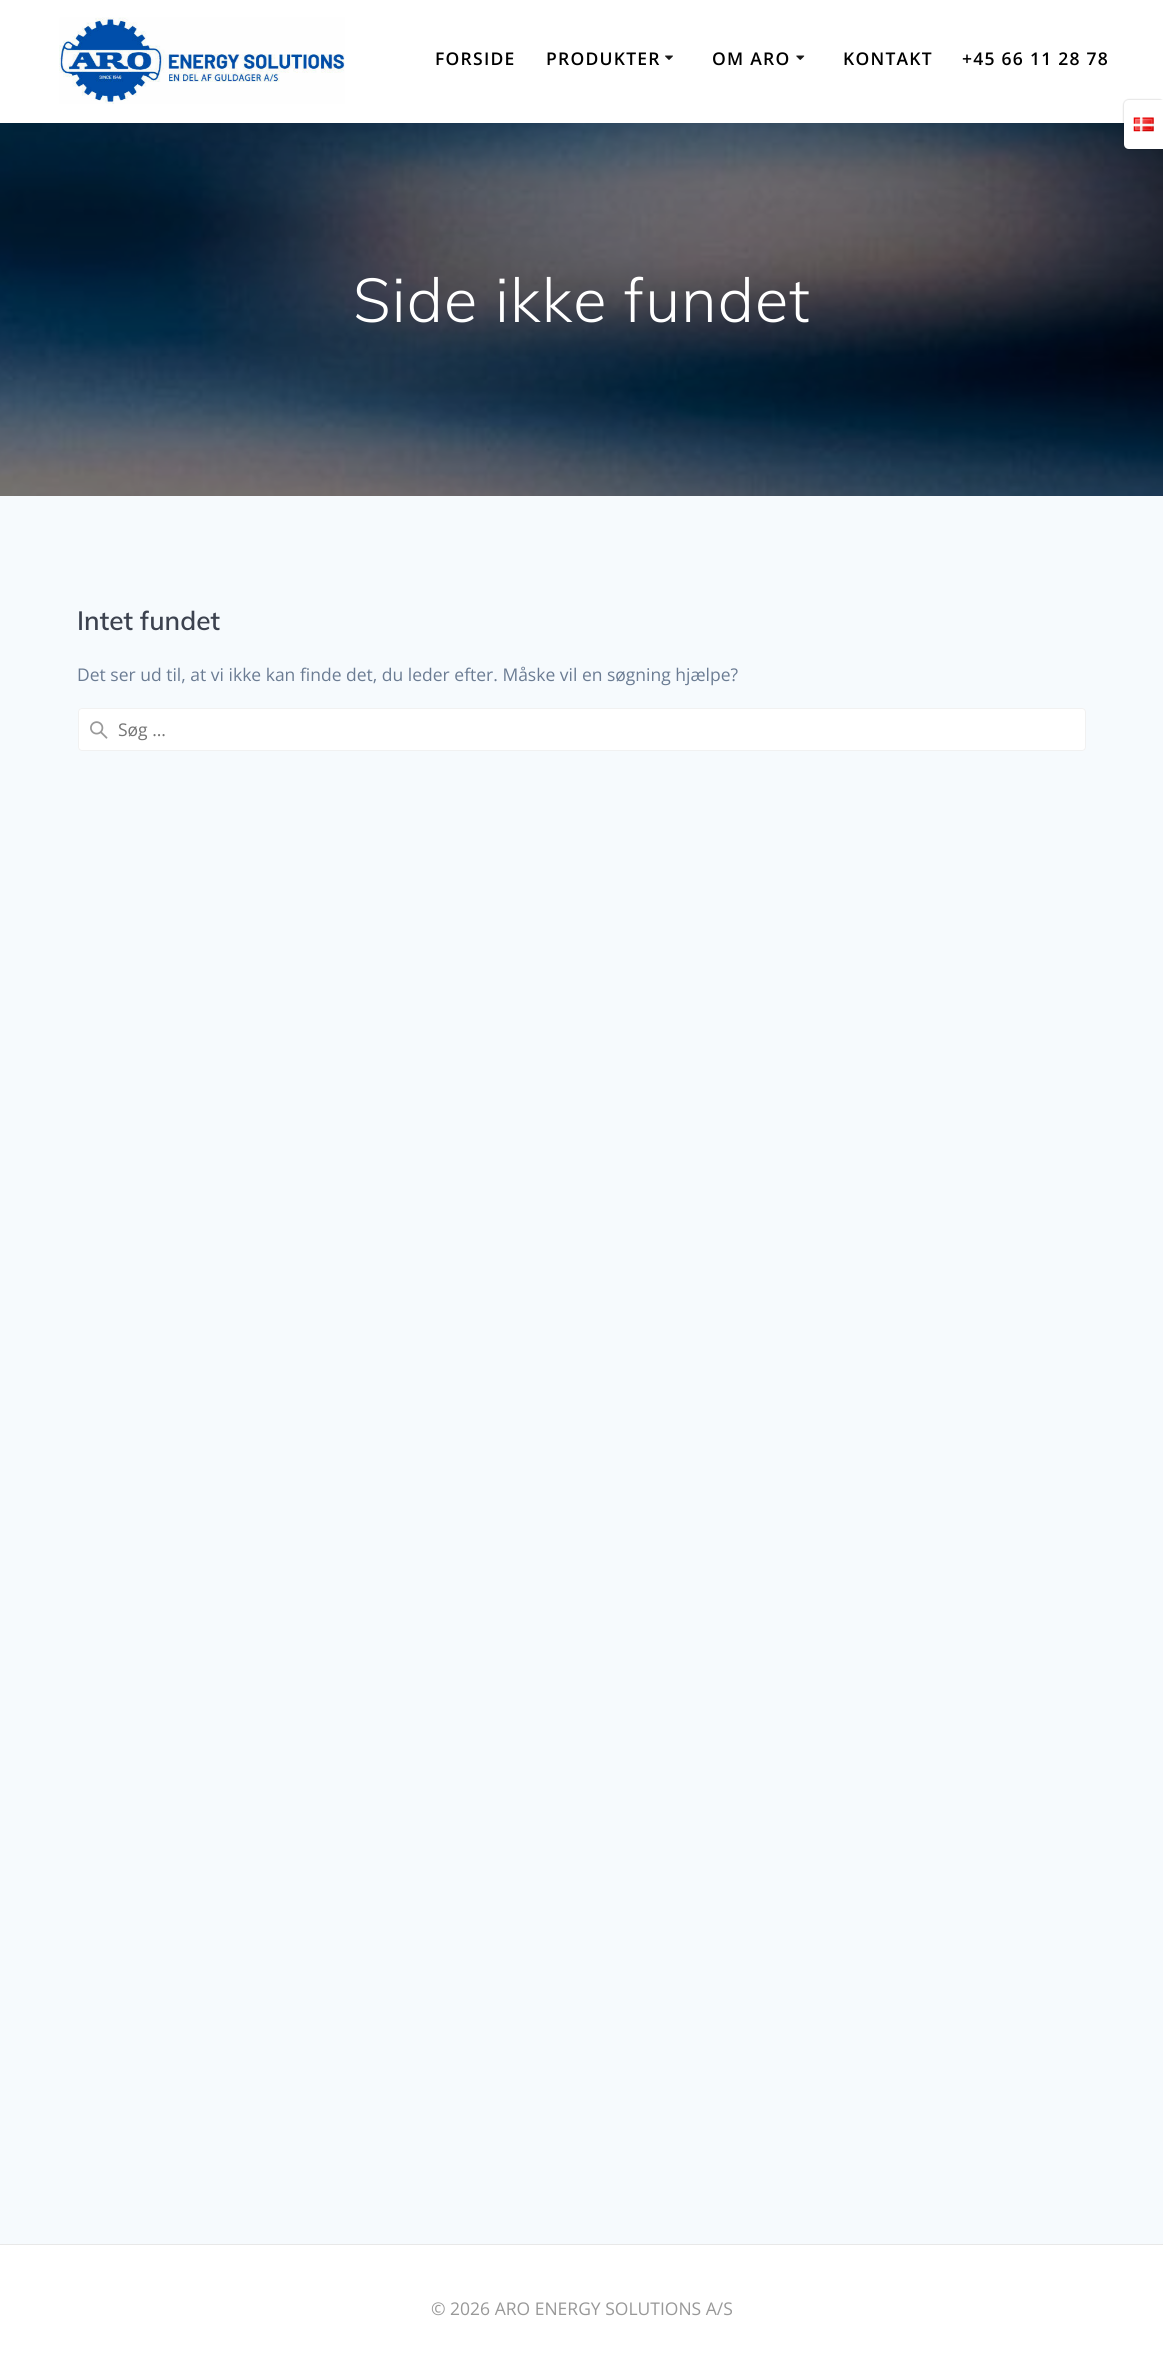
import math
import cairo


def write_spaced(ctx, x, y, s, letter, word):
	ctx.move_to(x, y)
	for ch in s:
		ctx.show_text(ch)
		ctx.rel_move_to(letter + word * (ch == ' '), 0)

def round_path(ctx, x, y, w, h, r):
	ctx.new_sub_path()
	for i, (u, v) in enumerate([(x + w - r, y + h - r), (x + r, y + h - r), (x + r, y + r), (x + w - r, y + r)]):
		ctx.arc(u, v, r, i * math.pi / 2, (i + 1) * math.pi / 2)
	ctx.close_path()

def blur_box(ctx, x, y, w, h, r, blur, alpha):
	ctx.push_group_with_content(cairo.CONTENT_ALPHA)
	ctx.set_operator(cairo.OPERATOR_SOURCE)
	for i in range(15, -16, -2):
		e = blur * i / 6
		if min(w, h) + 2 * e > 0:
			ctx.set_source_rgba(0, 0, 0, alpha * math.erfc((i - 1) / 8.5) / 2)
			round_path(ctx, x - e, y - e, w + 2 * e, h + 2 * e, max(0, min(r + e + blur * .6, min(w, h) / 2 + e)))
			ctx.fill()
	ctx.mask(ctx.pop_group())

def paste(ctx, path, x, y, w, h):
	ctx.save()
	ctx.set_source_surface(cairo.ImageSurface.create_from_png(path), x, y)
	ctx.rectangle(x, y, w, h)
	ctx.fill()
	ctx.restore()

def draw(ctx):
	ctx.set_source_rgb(1, 1, 1)
	ctx.paint()
	paste(ctx, 'media/1.png', 59, 17, 286, 87)
	ctx.select_font_face('Open Sans SemiBold')
	ctx.set_font_size(17.5)
	ctx.set_source_rgb(0, 0, 0)
	write_spaced(ctx, 435, 65, 'FORSIDE', 1.25, 0)
	write_spaced(ctx, 546, 65, 'PRODUKTER', 1.25, 0)
	paste(ctx, 'media/2.png', 665, 55, 8, 5)
	write_spaced(ctx, 712, 65, 'OM ARO', 1.25, 0)
	paste(ctx, 'media/3.png', 796, 55, 9, 5)
	write_spaced(ctx, 843, 65, 'KONTAKT', 1.25, 0)
	write_spaced(ctx, 962, 65, '+45 66 11 28 78', 1.25, 0)
	paste(ctx, 'media/5.png', 0, 123, 1163, 373)
	ctx.set_source_rgb(0, 0, 0)
	blur_box(ctx, 1123, 99, 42, 51, 6, 0.5, 0.1)
	ctx.set_source_rgb(1, 1, 1)
	ctx.new_path()
	ctx.move_to(1129, 100)
	ctx.line_to(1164, 100)
	ctx.line_to(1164, 149)
	ctx.line_to(1129, 149)
	ctx.curve_to(1126, 149, 1124, 147, 1124, 144)
	ctx.line_to(1124, 105)
	ctx.curve_to(1124, 102, 1126, 100, 1129, 100)
	ctx.close_path()
	ctx.fill()
	paste(ctx, 'media/4.png', 1133, 117, 21, 15)
	ctx.select_font_face('Muli Light')
	ctx.set_font_size(61.25)
	write_spaced(ctx, 353, 322, 'Side ikke fundet', 1.1, 0)
	ctx.set_source_rgb(0.961, 0.98, 0.992)
	ctx.rectangle(0, 496, 1163, 1748)
	ctx.fill()
	ctx.select_font_face('Muli SemiBold')
	ctx.set_font_size(26.25)
	ctx.set_source_rgb(0.235, 0.259, 0.31)
	ctx.move_to(77, 630)
	ctx.show_text('Intet fundet')
	ctx.select_font_face('Open Sans')
	ctx.set_font_size(17.5)
	ctx.set_source_rgb(0.42, 0.486, 0.576)
	ctx.move_to(77, 681)
	ctx.show_text('Det ser ud til, at vi ikke kan finde det, du leder efter. Måske vil en søgning hjælpe?')
	ctx.set_source_rgb(1, 1, 1)
	round_path(ctx, 78, 708, 1008, 43, 4)
	ctx.fill()
	paste(ctx, 'media/6.png', 90, 721, 18, 18)
	round_path(ctx, 78.5, 708.5, 1007, 42, 3.5)
	ctx.set_source_rgb(0.945, 0.945, 0.945)
	ctx.set_line_width(1)
	ctx.stroke()
	ctx.set_source_rgb(0.459, 0.459, 0.459)
	ctx.move_to(118, 736)
	ctx.show_text('Søg …')
	ctx.set_source_rgb(0.91, 0.91, 0.91)
	ctx.rectangle(0, 2244, 1163, 1)
	ctx.fill()
	ctx.set_source_rgb(0.596, 0.596, 0.596)
	ctx.move_to(431, 2315)
	ctx.show_text('© 2026 ARO ENERGY SOLUTIONS A/S')


surface = cairo.ImageSurface(cairo.FORMAT_RGB24, 1163, 2369)
ctx = cairo.Context(surface)
options = cairo.FontOptions()
options.set_hint_metrics(cairo.HINT_METRICS_OFF)
options.set_hint_style(cairo.HINT_STYLE_NONE)
ctx.set_font_options(options)
ctx.set_miter_limit(4)
draw(ctx)
surface.write_to_png('image.png')
